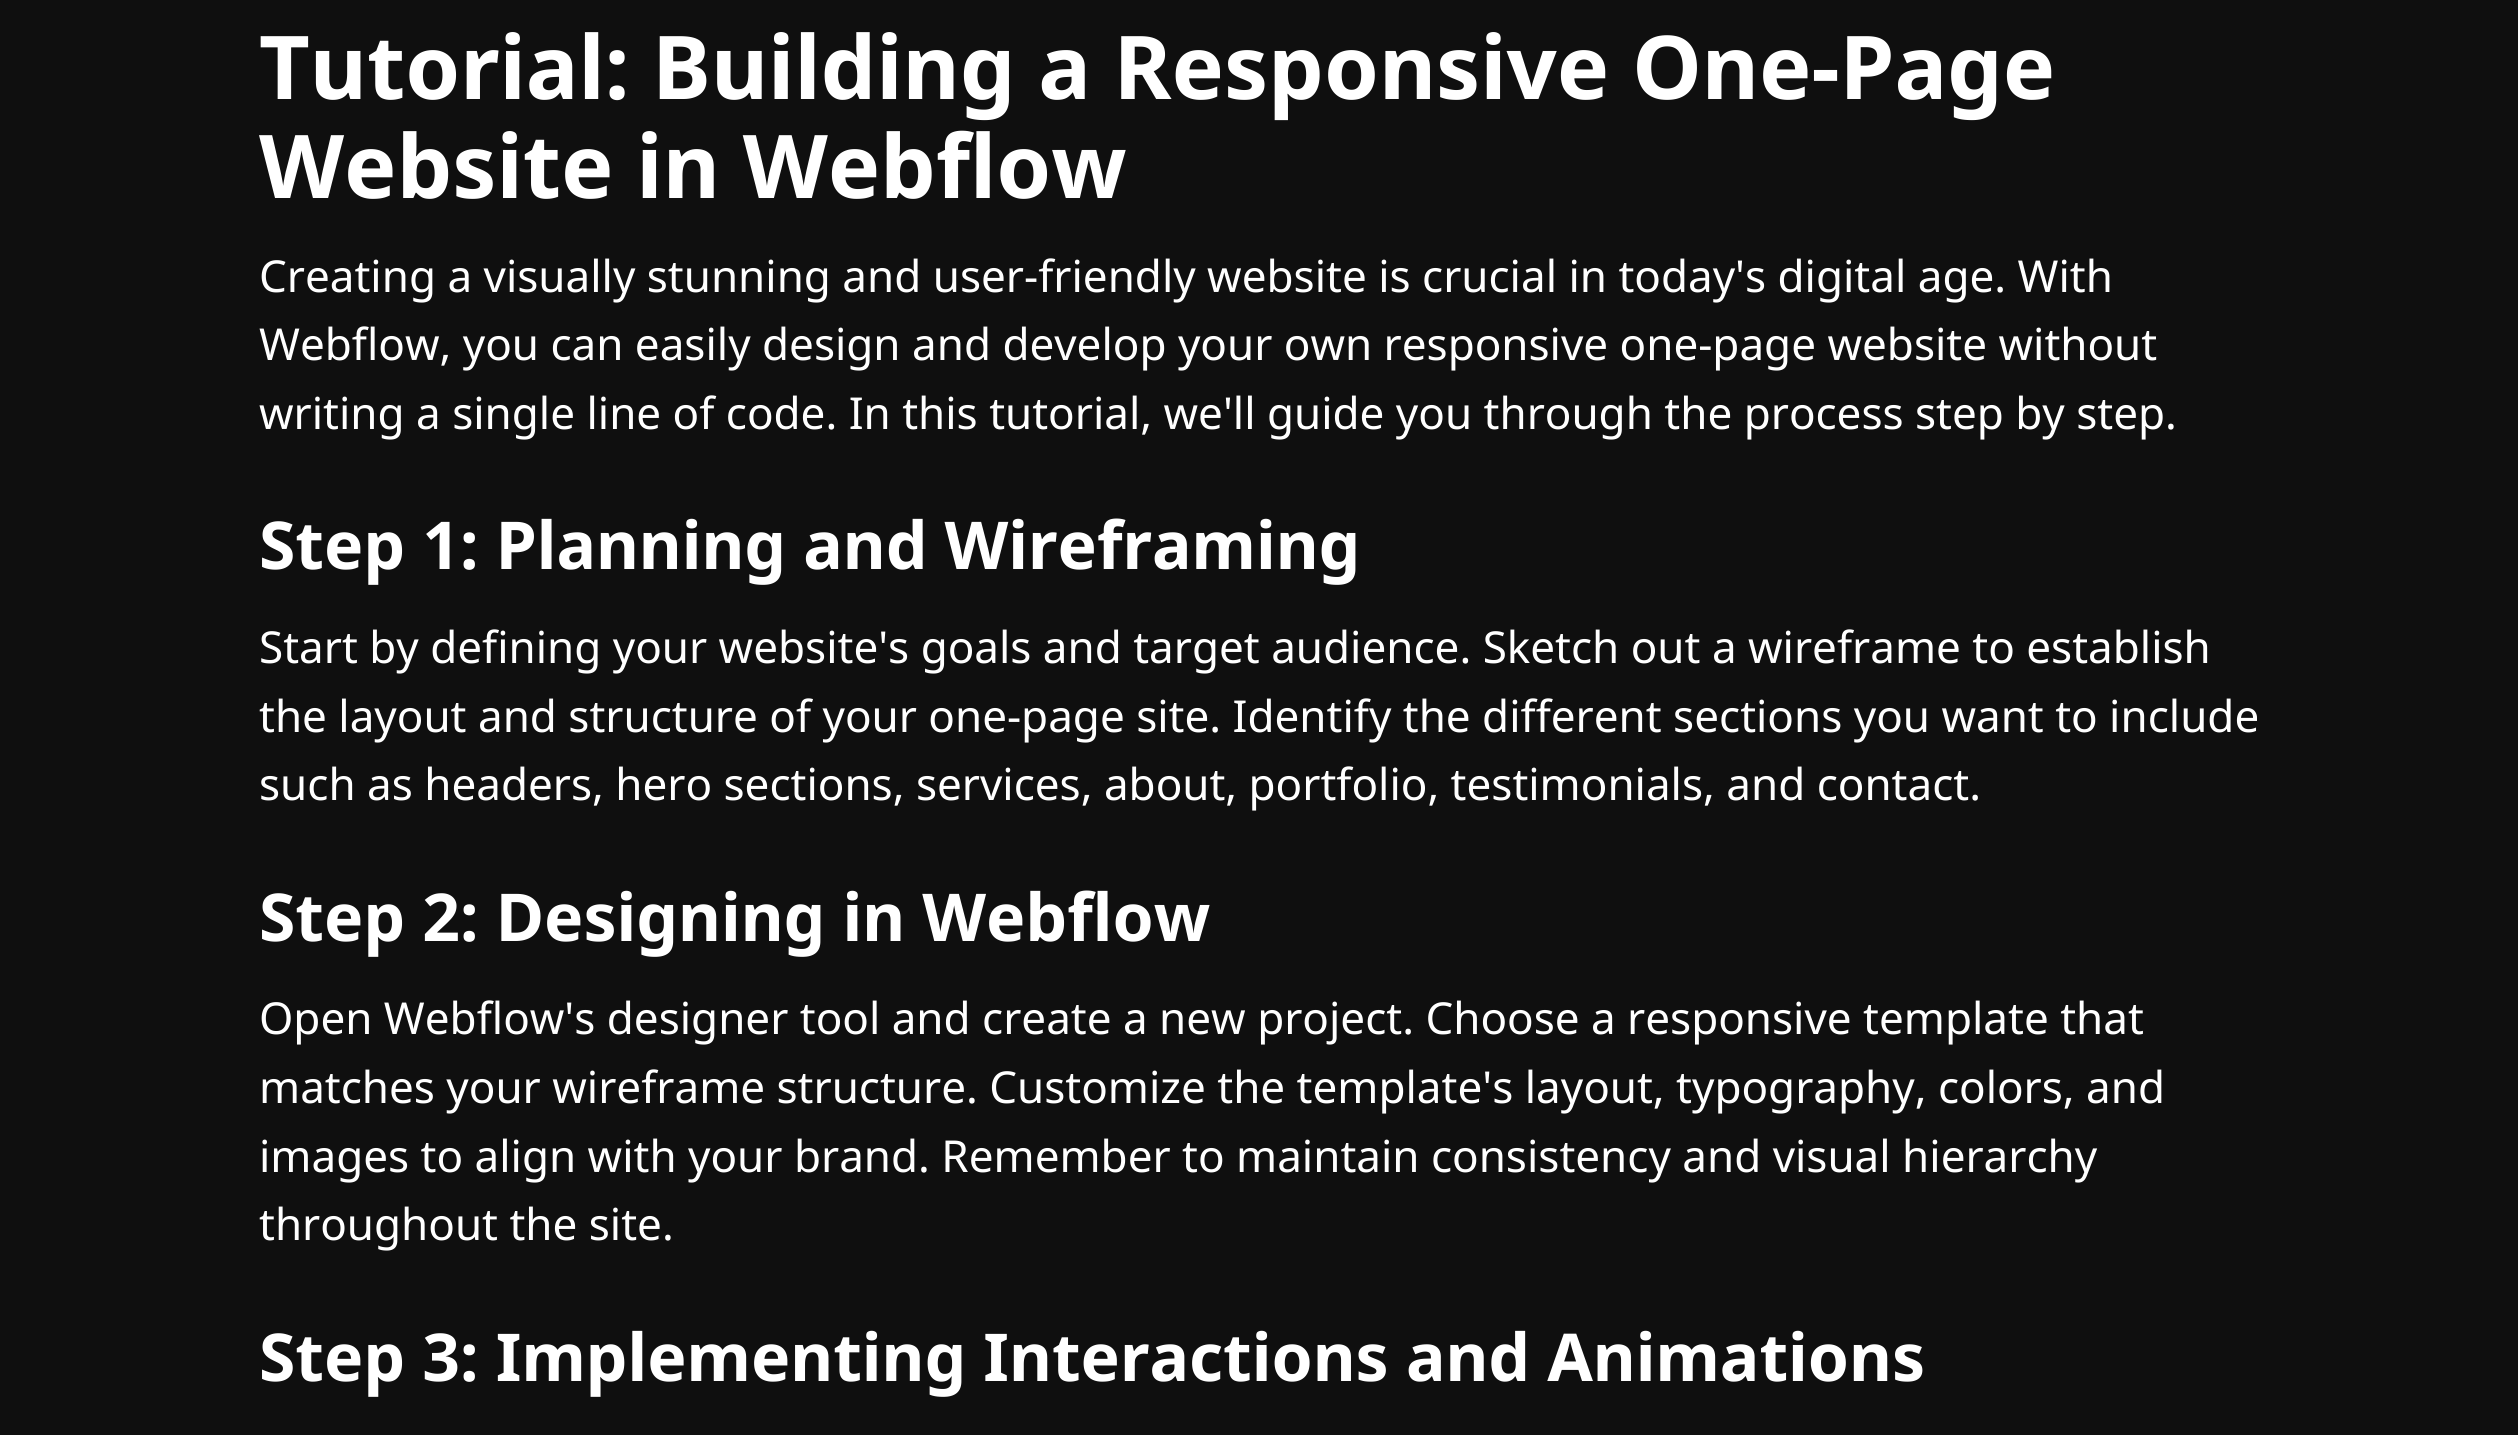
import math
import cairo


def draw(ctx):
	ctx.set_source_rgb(0.059, 0.059, 0.059)
	ctx.paint()
	ctx.select_font_face('Noto Sans', cairo.FONT_SLANT_NORMAL, cairo.FONT_WEIGHT_BOLD)
	ctx.set_font_size(88)
	ctx.set_source_rgb(1, 1, 1)
	ctx.move_to(259, 99)
	ctx.show_text('Tutorial: Building a Responsive One-Page')
	ctx.move_to(259, 198)
	ctx.show_text('Website in Webflow')
	ctx.select_font_face('Noto Sans')
	ctx.set_font_size(44)
	for x, y, s in [
		(259, 292, 'Creating a visually stunning and user-friendly website is crucial in today\'s digital age. With'),
		(259, 360, 'Webflow, you can easily design and develop your own responsive one-page website without'),
		(259, 429, 'writing a single line of code. In this tutorial, we\'ll guide you through the process step by step.'),
	]:
		ctx.move_to(x, y)
		ctx.show_text(s)
	ctx.select_font_face('Noto Sans', cairo.FONT_SLANT_NORMAL, cairo.FONT_WEIGHT_BOLD)
	ctx.set_font_size(66)
	ctx.move_to(259, 569)
	ctx.show_text('Step 1: Planning and Wireframing')
	ctx.select_font_face('Noto Sans')
	ctx.set_font_size(44)
	for x, y, s in [
		(259, 663, 'Start by defining your website\'s goals and target audience. Sketch out a wireframe to establish'),
		(259, 732, 'the layout and structure of your one-page site. Identify the different sections you want to include'),
		(259, 800, 'such as headers, hero sections, services, about, portfolio, testimonials, and contact.'),
	]:
		ctx.move_to(x, y)
		ctx.show_text(s)
	ctx.select_font_face('Noto Sans', cairo.FONT_SLANT_NORMAL, cairo.FONT_WEIGHT_BOLD)
	ctx.set_font_size(66)
	ctx.move_to(259, 941)
	ctx.show_text('Step 2: Designing in Webflow')
	ctx.select_font_face('Noto Sans')
	ctx.set_font_size(44)
	for x, y, s in [
		(259, 1034, 'Open Webflow\'s designer tool and create a new project. Choose a responsive template that'),
		(259, 1103, 'matches your wireframe structure. Customize the template\'s layout, typography, colors, and'),
		(259, 1172, 'images to align with your brand. Remember to maintain consistency and visual hierarchy'),
		(259, 1240, 'throughout the site.'),
	]:
		ctx.move_to(x, y)
		ctx.show_text(s)
	ctx.select_font_face('Noto Sans', cairo.FONT_SLANT_NORMAL, cairo.FONT_WEIGHT_BOLD)
	ctx.set_font_size(66)
	ctx.move_to(259, 1381)
	ctx.show_text('Step 3: Implementing Interactions and Animations')


surface = cairo.ImageSurface(cairo.FORMAT_RGB24, 2518, 1435)
ctx = cairo.Context(surface)
options = cairo.FontOptions()
options.set_hint_metrics(cairo.HINT_METRICS_OFF)
options.set_hint_style(cairo.HINT_STYLE_NONE)
ctx.set_font_options(options)
ctx.set_miter_limit(4)
draw(ctx)
surface.write_to_png('image.png')
